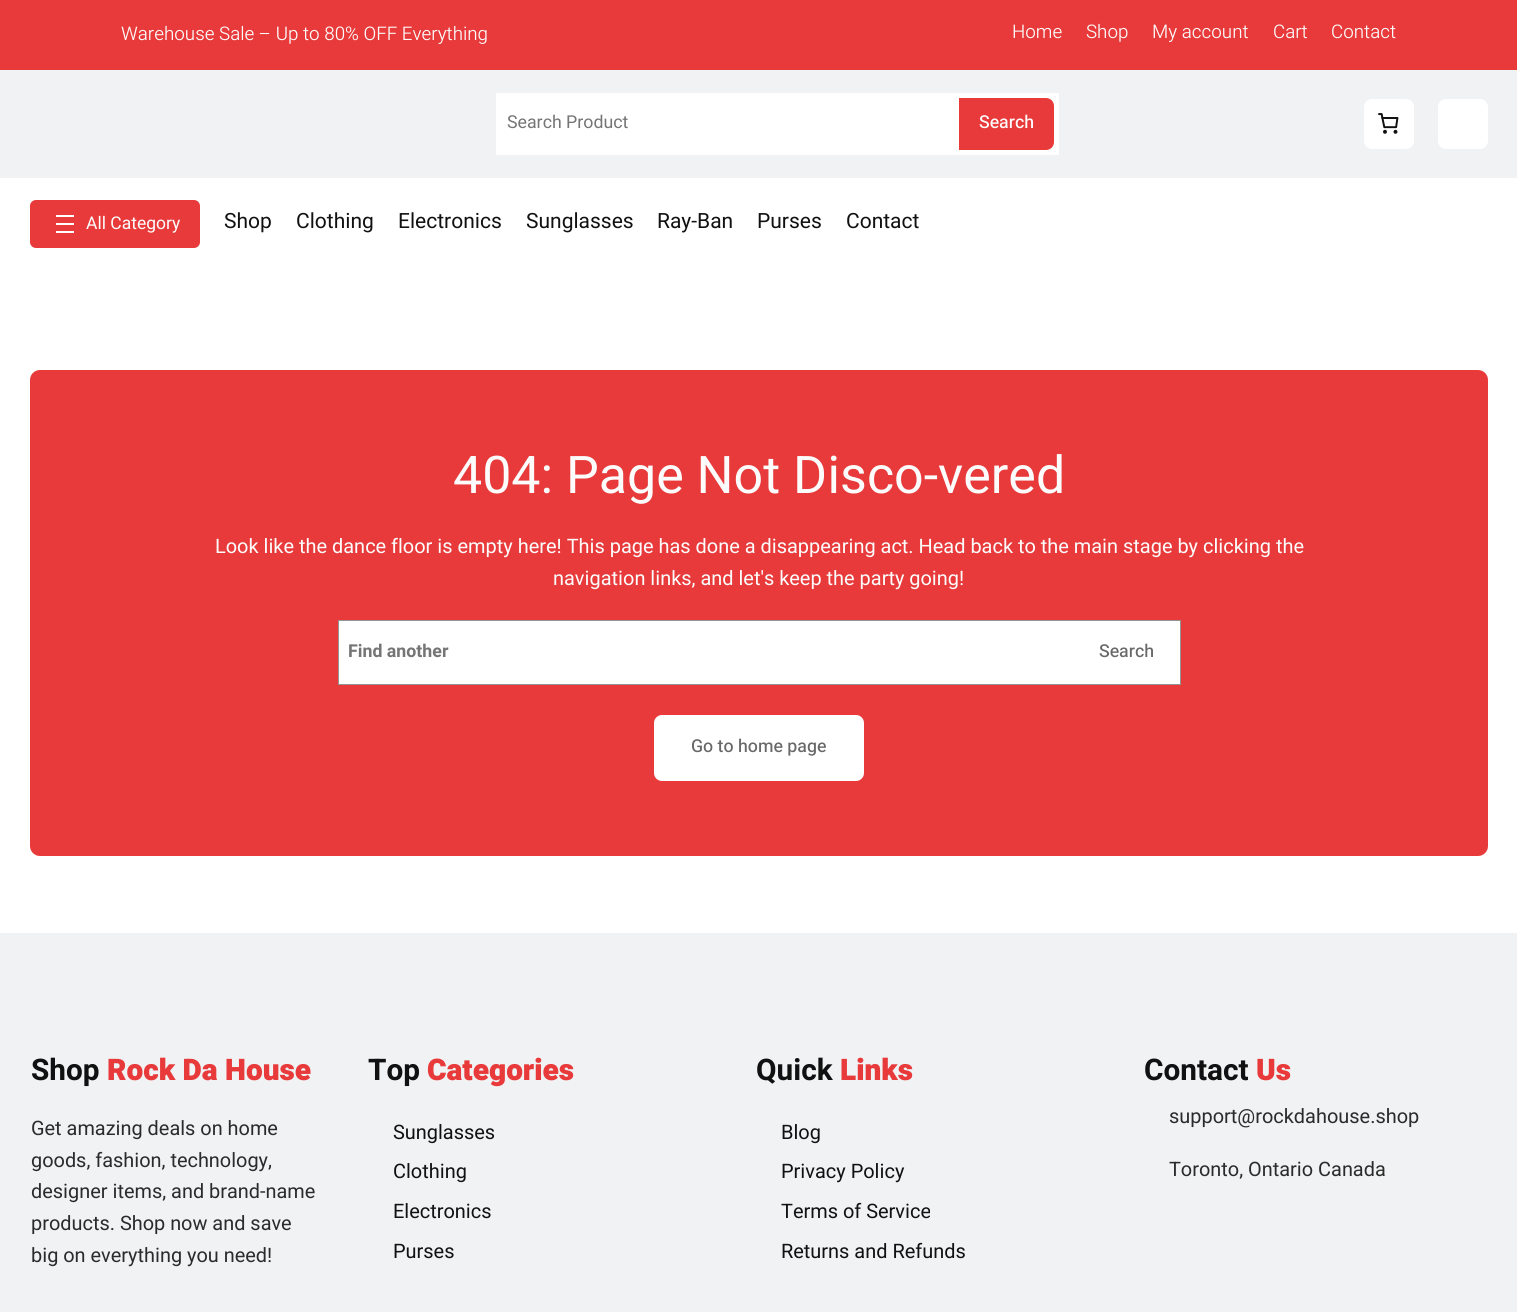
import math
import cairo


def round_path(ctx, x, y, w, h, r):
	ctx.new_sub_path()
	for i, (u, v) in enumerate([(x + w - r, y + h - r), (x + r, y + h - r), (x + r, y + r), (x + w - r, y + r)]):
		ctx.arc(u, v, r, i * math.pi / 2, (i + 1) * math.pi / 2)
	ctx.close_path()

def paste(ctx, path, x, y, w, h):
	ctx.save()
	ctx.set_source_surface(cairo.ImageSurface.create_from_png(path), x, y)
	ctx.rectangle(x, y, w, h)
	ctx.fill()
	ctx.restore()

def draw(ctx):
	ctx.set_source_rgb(1, 1, 1)
	ctx.paint()
	ctx.set_source_rgb(0.91, 0.227, 0.227)
	ctx.rectangle(0, 0, 1517, 70)
	ctx.fill()
	ctx.select_font_face('Heebo Light')
	ctx.set_font_size(18.75)
	ctx.set_source_rgb(0.988, 0.988, 0.988)
	for x, y, s in [
		(121, 40, 'Warehouse Sale – Up to 80% OFF Everything'),
		(1012, 38, 'Home'),
		(1086, 38, 'Shop'),
		(1152, 38, 'My account'),
		(1273, 38, 'Cart'),
		(1331, 38, 'Contact'),
	]:
		ctx.move_to(x, y)
		ctx.show_text(s)
	ctx.set_source_rgb(0.941, 0.949, 0.953)
	ctx.rectangle(0, 70, 1517, 108)
	ctx.fill()
	ctx.set_source_rgb(1, 1, 1)
	ctx.rectangle(496, 93, 563, 62)
	ctx.fill()
	ctx.select_font_face('Heebo')
	ctx.set_font_size(17.75)
	ctx.set_source_rgb(0.459, 0.459, 0.459)
	ctx.move_to(507, 128)
	ctx.show_text('Search Product')
	ctx.set_source_rgb(0.91, 0.227, 0.227)
	ctx.new_path()
	ctx.move_to(959, 98)
	ctx.line_to(1046, 98)
	ctx.curve_to(1050.5, 98, 1054, 101.5, 1054, 106)
	ctx.line_to(1054, 142)
	ctx.curve_to(1054, 146.5, 1050.5, 150, 1046, 150)
	ctx.line_to(959, 150)
	ctx.close_path()
	ctx.fill()
	ctx.select_font_face('Heebo Medium')
	ctx.set_source_rgb(0.988, 0.988, 0.988)
	ctx.move_to(979, 128)
	ctx.show_text('Search')
	ctx.set_source_rgb(1, 1, 1)
	round_path(ctx, 1364, 99, 50, 50, 8)
	ctx.fill()
	paste(ctx, 'media/1.png', 1378, 113, 21, 21)
	round_path(ctx, 1438, 99, 50, 50, 8)
	ctx.fill()
	ctx.set_source_rgb(0.91, 0.227, 0.227)
	round_path(ctx, 30, 200, 170, 48, 6)
	ctx.fill()
	ctx.set_source_rgb(1, 1, 1)
	ctx.rectangle(56, 215, 18, 2)
	ctx.rectangle(56, 223, 18, 2)
	ctx.rectangle(56, 231, 18, 2)
	ctx.fill()
	ctx.select_font_face('Heebo')
	ctx.set_font_size(17.5)
	ctx.set_source_rgb(0.988, 0.988, 0.988)
	ctx.move_to(86, 229)
	ctx.show_text('All Category')
	ctx.set_font_size(21)
	ctx.set_source_rgb(0.067, 0.067, 0.067)
	for x, y, s in [
		(224, 228, 'Shop'),
		(296, 228, 'Clothing'),
		(398, 228, 'Electronics'),
		(526, 228, 'Sunglasses'),
		(657, 228, 'Ray-Ban'),
		(757, 228, 'Purses'),
		(846, 228, 'Contact'),
	]:
		ctx.move_to(x, y)
		ctx.show_text(s)
	ctx.set_source_rgb(0.91, 0.227, 0.227)
	round_path(ctx, 30, 370, 1458, 486, 10)
	ctx.fill()
	ctx.set_font_size(51.9)
	ctx.set_source_rgb(0.988, 0.988, 0.988)
	ctx.move_to(453, 493)
	ctx.show_text('404: Page Not Disco-vered')
	ctx.set_font_size(19.93)
	ctx.move_to(215, 553)
	ctx.show_text('Look like the dance floor is empty here! This page has done a disappearing act. Head back to the main stage by clicking the')
	ctx.move_to(553, 585)
	ctx.show_text('navigation links, and let\'s keep the party going!')
	ctx.set_source_rgb(1, 1, 1)
	ctx.rectangle(338.5, 620.5, 842, 64)
	ctx.fill_preserve()
	ctx.set_source_rgb(0.58, 0.58, 0.58)
	ctx.set_line_width(1)
	ctx.stroke()
	ctx.select_font_face('Heebo', cairo.FONT_SLANT_NORMAL, cairo.FONT_WEIGHT_BOLD)
	ctx.set_font_size(17.75)
	ctx.set_source_rgb(0.459, 0.459, 0.459)
	ctx.move_to(348, 657)
	ctx.show_text('Find another')
	ctx.select_font_face('Heebo Medium')
	ctx.set_source_rgb(0.408, 0.408, 0.408)
	ctx.move_to(1099, 657)
	ctx.show_text('Search')
	ctx.set_source_rgb(1, 1, 1)
	round_path(ctx, 654, 715, 210, 66, 8)
	ctx.fill()
	ctx.set_source_rgb(0.408, 0.408, 0.408)
	ctx.move_to(691, 752)
	ctx.show_text('Go to home page')
	ctx.set_source_rgb(0.941, 0.949, 0.953)
	ctx.rectangle(0, 933, 1517, 379)
	ctx.fill()
	ctx.select_font_face('Heebo', cairo.FONT_SLANT_NORMAL, cairo.FONT_WEIGHT_BOLD)
	ctx.set_font_size(29.75)
	ctx.set_source_rgb(0.067, 0.067, 0.067)
	ctx.move_to(31, 1080)
	ctx.show_text('Shop')
	ctx.select_font_face('Heebo Black')
	ctx.set_source_rgb(0.91, 0.227, 0.227)
	ctx.move_to(107, 1080)
	ctx.show_text('Rock Da House')
	ctx.select_font_face('Heebo')
	ctx.set_font_size(19.9)
	ctx.set_source_rgb(0.173, 0.169, 0.169)
	for x, y, s in [
		(31, 1135, 'Get amazing deals on home'),
		(31, 1167, 'goods, fashion, technology,'),
		(31, 1198, 'designer items, and brand-name'),
		(31, 1230, 'products. Shop now and save'),
		(31, 1262, 'big on everything you need!'),
	]:
		ctx.move_to(x, y)
		ctx.show_text(s)
	ctx.select_font_face('Heebo', cairo.FONT_SLANT_NORMAL, cairo.FONT_WEIGHT_BOLD)
	ctx.set_font_size(29.75)
	ctx.set_source_rgb(0.067, 0.067, 0.067)
	ctx.move_to(368, 1080)
	ctx.show_text('Top')
	ctx.select_font_face('Heebo Black')
	ctx.set_source_rgb(0.91, 0.227, 0.227)
	ctx.move_to(427, 1080)
	ctx.show_text('Categories')
	ctx.select_font_face('Heebo')
	ctx.set_font_size(19.93)
	ctx.set_source_rgb(0.067, 0.067, 0.067)
	for x, y, s in [
		(393, 1139, 'Sunglasses'),
		(393, 1178, 'Clothing'),
		(393, 1218, 'Electronics'),
		(393, 1258, 'Purses'),
	]:
		ctx.move_to(x, y)
		ctx.show_text(s)
	ctx.select_font_face('Heebo', cairo.FONT_SLANT_NORMAL, cairo.FONT_WEIGHT_BOLD)
	ctx.set_font_size(29.75)
	ctx.move_to(756, 1080)
	ctx.show_text('Quick')
	ctx.select_font_face('Heebo Black')
	ctx.set_source_rgb(0.91, 0.227, 0.227)
	ctx.move_to(840, 1080)
	ctx.show_text('Links')
	ctx.select_font_face('Heebo')
	ctx.set_font_size(19.93)
	ctx.set_source_rgb(0.067, 0.067, 0.067)
	for x, y, s in [
		(781, 1139, 'Blog'),
		(781, 1178, 'Privacy Policy'),
		(781, 1218, 'Terms of Service'),
		(781, 1258, 'Returns and Refunds'),
	]:
		ctx.move_to(x, y)
		ctx.show_text(s)
	ctx.select_font_face('Heebo', cairo.FONT_SLANT_NORMAL, cairo.FONT_WEIGHT_BOLD)
	ctx.set_font_size(29.75)
	ctx.move_to(1144, 1080)
	ctx.show_text('Contact')
	ctx.select_font_face('Heebo Black')
	ctx.set_source_rgb(0.91, 0.227, 0.227)
	ctx.move_to(1256, 1080)
	ctx.show_text('Us')
	ctx.select_font_face('Heebo')
	ctx.set_font_size(19.93)
	ctx.set_source_rgb(0.173, 0.169, 0.169)
	ctx.move_to(1169, 1123)
	ctx.show_text('support@rockdahouse.shop')
	ctx.set_font_size(19.9)
	ctx.move_to(1169, 1176)
	ctx.show_text('Toronto, Ontario Canada')


surface = cairo.ImageSurface(cairo.FORMAT_RGB24, 1517, 1312)
ctx = cairo.Context(surface)
options = cairo.FontOptions()
options.set_hint_metrics(cairo.HINT_METRICS_OFF)
options.set_hint_style(cairo.HINT_STYLE_NONE)
ctx.set_font_options(options)
ctx.set_miter_limit(4)
draw(ctx)
surface.write_to_png('image.png')
